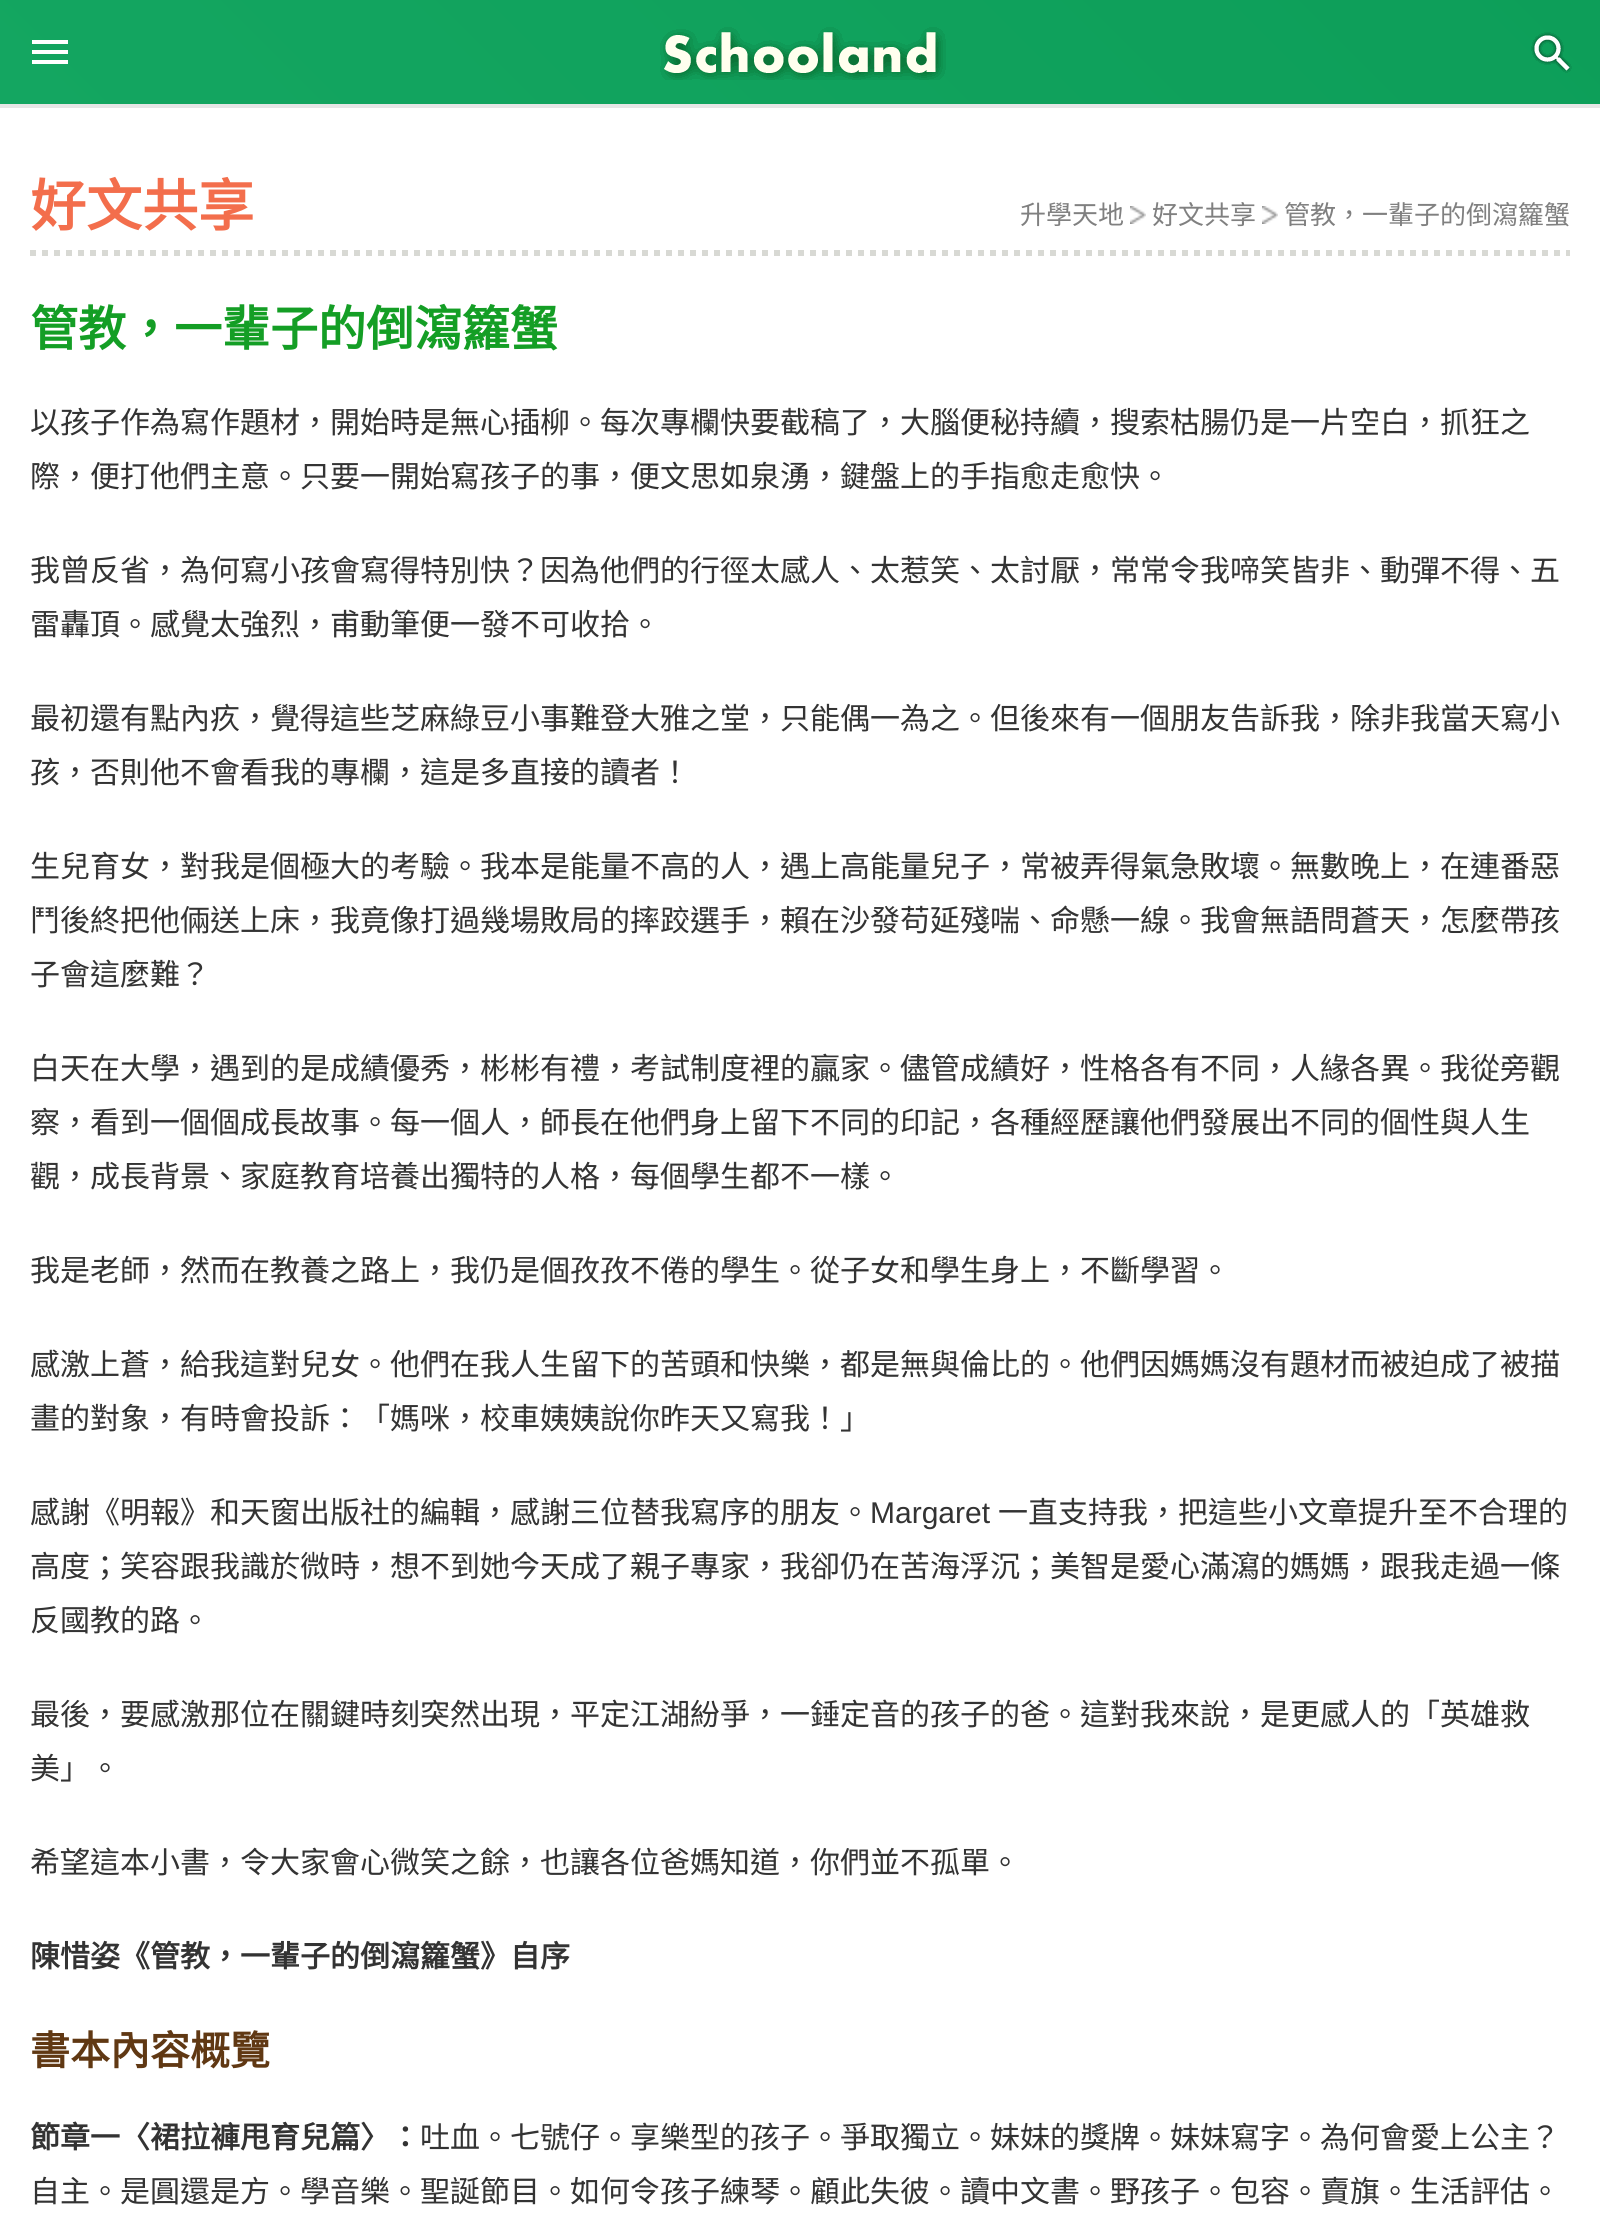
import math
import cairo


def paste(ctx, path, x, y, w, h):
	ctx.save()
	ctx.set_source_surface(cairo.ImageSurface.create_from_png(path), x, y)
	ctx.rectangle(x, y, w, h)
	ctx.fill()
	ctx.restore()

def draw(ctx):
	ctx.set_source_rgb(1, 1, 1)
	ctx.paint()
	gradient = cairo.LinearGradient(374, 478, 1226, -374)
	gradient.add_color_stop_rgba(0, 0.078, 0.651, 0.38, 1)
	gradient.add_color_stop_rgba(1, 0.051, 0.62, 0.349, 1)
	ctx.set_source(gradient)
	ctx.rectangle(0, 0, 1600, 104)
	ctx.fill()
	ctx.set_source_rgb(0.902, 0.902, 0.902)
	ctx.rectangle(0, 104, 1600, 4)
	ctx.fill()
	paste(ctx, 'media/1.png', 32, 40, 36, 24)
	paste(ctx, 'media/2.png', 660, 27, 286, 53)
	paste(ctx, 'media/3.png', 1531, 32, 41, 41)
	ctx.new_path()
	ctx.move_to(30, 253)
	ctx.line_to(1570, 253)
	ctx.set_source_rgb(0.847, 0.851, 0.831)
	ctx.set_line_width(6)
	ctx.set_dash([6, 6])
	ctx.stroke()
	ctx.select_font_face('Noto Sans CJK HK', cairo.FONT_SLANT_NORMAL, cairo.FONT_WEIGHT_BOLD)
	ctx.set_font_size(56)
	ctx.set_source_rgb(0.953, 0.431, 0.298)
	ctx.move_to(30, 226)
	ctx.show_text('好文共享')
	ctx.select_font_face('Noto Sans CJK HK')
	ctx.set_font_size(26)
	ctx.set_source_rgb(0.502, 0.502, 0.502)
	ctx.move_to(1020, 224)
	ctx.show_text('升學天地')
	paste(ctx, 'media/4.png', 1130, 206, 16, 18)
	ctx.move_to(1152, 224)
	ctx.show_text('好文共享')
	paste(ctx, 'media/4.png', 1262, 206, 16, 18)
	ctx.move_to(1284, 224)
	ctx.show_text('管教，一輩子的倒瀉籮蟹')
	ctx.select_font_face('Noto Sans CJK HK', cairo.FONT_SLANT_NORMAL, cairo.FONT_WEIGHT_BOLD)
	ctx.set_font_size(48)
	ctx.set_source_rgb(0.082, 0.62, 0.145)
	ctx.move_to(30, 346)
	ctx.show_text('管教，一輩子的倒瀉籮蟹')
	ctx.select_font_face('Noto Sans CJK HK')
	ctx.set_font_size(30)
	ctx.set_source_rgb(0.2, 0.2, 0.2)
	for x, y, s in [
		(30, 433, '以孩子作為寫作題材，開始時是無心插柳。每次專欄快要截稿了，大腦便秘持續，搜索枯腸仍是一片空白，抓狂之'),
		(30, 487, '際，便打他們主意。只要一開始寫孩子的事，便文思如泉湧，鍵盤上的手指愈走愈快。'),
		(30, 581, '我曾反省，為何寫小孩會寫得特別快？因為他們的行徑太感人、太惹笑、太討厭，常常令我啼笑皆非、動彈不得、五'),
		(30, 635, '雷轟頂。感覺太強烈，甫動筆便一發不可收拾。'),
		(30, 729, '最初還有點內疚，覺得這些芝麻綠豆小事難登大雅之堂，只能偶一為之。但後來有一個朋友告訴我，除非我當天寫小'),
		(30, 783, '孩，否則他不會看我的專欄，這是多直接的讀者！'),
		(30, 877, '生兒育女，對我是個極大的考驗。我本是能量不高的人，遇上高能量兒子，常被弄得氣急敗壞。無數晚上，在連番惡'),
		(30, 931, '鬥後終把他倆送上床，我竟像打過幾場敗局的摔跤選手，賴在沙發苟延殘喘、命懸一線。我會無語問蒼天，怎麼帶孩'),
		(30, 985, '子會這麼難？'),
		(30, 1079, '白天在大學，遇到的是成績優秀，彬彬有禮，考試制度裡的贏家。儘管成績好，性格各有不同，人緣各異。我從旁觀'),
		(30, 1133, '察，看到一個個成長故事。每一個人，師長在他們身上留下不同的印記，各種經歷讓他們發展出不同的個性與人生'),
		(30, 1187, '觀，成長背景、家庭教育培養出獨特的人格，每個學生都不一樣。'),
		(30, 1281, '我是老師，然而在教養之路上，我仍是個孜孜不倦的學生。從子女和學生身上，不斷學習。'),
		(30, 1375, '感激上蒼，給我這對兒女。他們在我人生留下的苦頭和快樂，都是無與倫比的。他們因媽媽沒有題材而被迫成了被描'),
		(30, 1429, '畫的對象，有時會投訴：「媽咪，校車姨姨說你昨天又寫我！」'),
		(30, 1523, '感謝《明報》和天窗出版社的編輯，感謝三位替我寫序的朋友。'),
	]:
		ctx.move_to(x, y)
		ctx.show_text(s)
	ctx.select_font_face('Liberation Sans')
	ctx.move_to(870, 1523)
	ctx.show_text('Margaret')
	ctx.select_font_face('Noto Sans CJK HK')
	for x, y, s in [
		(998, 1523, '一直支持我，把這些小文章提升至不合理的'),
		(30, 1577, '高度；笑容跟我識於微時，想不到她今天成了親子專家，我卻仍在苦海浮沉；美智是愛心滿瀉的媽媽，跟我走過一條'),
		(30, 1631, '反國教的路。'),
		(30, 1725, '最後，要感激那位在關鍵時刻突然出現，平定江湖紛爭，一錘定音的孩子的爸。這對我來說，是更感人的「英雄救'),
		(30, 1779, '美」。'),
		(30, 1873, '希望這本小書，令大家會心微笑之餘，也讓各位爸媽知道，你們並不孤單。'),
	]:
		ctx.move_to(x, y)
		ctx.show_text(s)
	ctx.select_font_face('Noto Sans CJK HK', cairo.FONT_SLANT_NORMAL, cairo.FONT_WEIGHT_BOLD)
	ctx.move_to(30, 1967)
	ctx.show_text('陳惜姿《管教，一輩子的倒瀉籮蟹》自序')
	ctx.set_font_size(40)
	ctx.set_source_rgb(0.376, 0.22, 0.075)
	ctx.move_to(30, 2065)
	ctx.show_text('書本內容概覽')
	ctx.set_font_size(30)
	ctx.set_source_rgb(0.2, 0.2, 0.2)
	ctx.move_to(30, 2148)
	ctx.show_text('節章一〈裙拉褲甩育兒篇〉：')
	ctx.select_font_face('Noto Sans CJK HK')
	ctx.move_to(420, 2148)
	ctx.show_text('吐血。七號仔。享樂型的孩子。爭取獨立。妹妹的獎牌。妹妹寫字。為何會愛上公主？')
	ctx.move_to(30, 2202)
	ctx.show_text('自主。是圓還是方。學音樂。聖誕節目。如何令孩子練琴。顧此失彼。讀中文書。野孩子。包容。賣旗。生活評估。')


surface = cairo.ImageSurface(cairo.FORMAT_RGB24, 1600, 2217)
ctx = cairo.Context(surface)
options = cairo.FontOptions()
options.set_hint_metrics(cairo.HINT_METRICS_OFF)
options.set_hint_style(cairo.HINT_STYLE_NONE)
ctx.set_font_options(options)
ctx.set_miter_limit(4)
draw(ctx)
surface.write_to_png('image.png')
